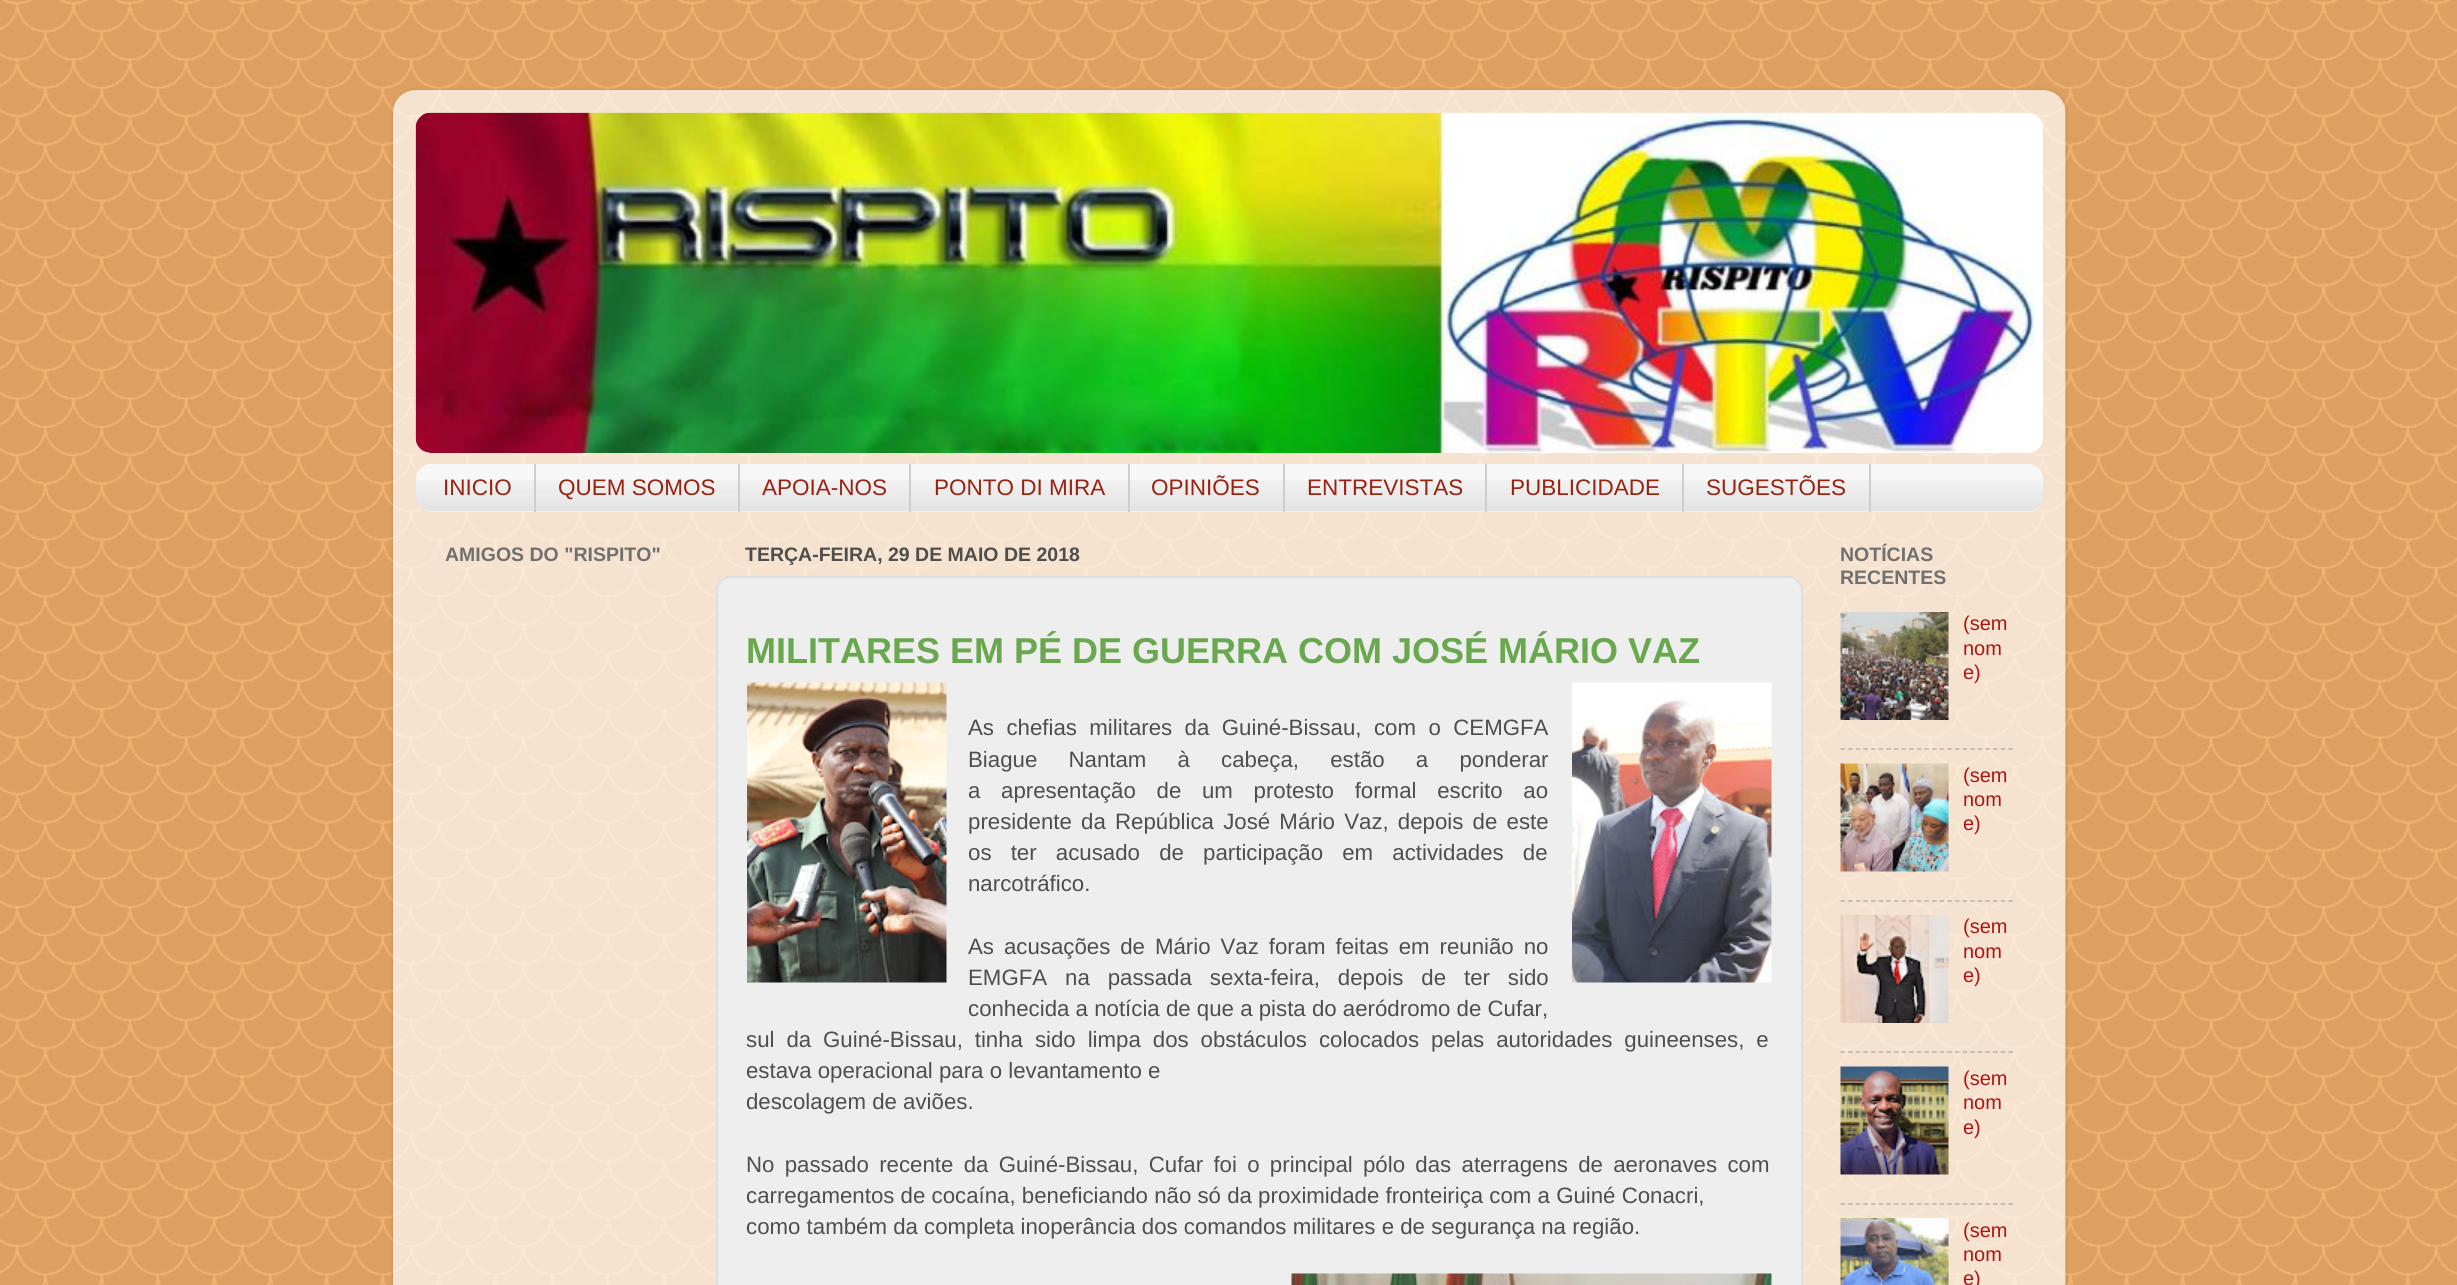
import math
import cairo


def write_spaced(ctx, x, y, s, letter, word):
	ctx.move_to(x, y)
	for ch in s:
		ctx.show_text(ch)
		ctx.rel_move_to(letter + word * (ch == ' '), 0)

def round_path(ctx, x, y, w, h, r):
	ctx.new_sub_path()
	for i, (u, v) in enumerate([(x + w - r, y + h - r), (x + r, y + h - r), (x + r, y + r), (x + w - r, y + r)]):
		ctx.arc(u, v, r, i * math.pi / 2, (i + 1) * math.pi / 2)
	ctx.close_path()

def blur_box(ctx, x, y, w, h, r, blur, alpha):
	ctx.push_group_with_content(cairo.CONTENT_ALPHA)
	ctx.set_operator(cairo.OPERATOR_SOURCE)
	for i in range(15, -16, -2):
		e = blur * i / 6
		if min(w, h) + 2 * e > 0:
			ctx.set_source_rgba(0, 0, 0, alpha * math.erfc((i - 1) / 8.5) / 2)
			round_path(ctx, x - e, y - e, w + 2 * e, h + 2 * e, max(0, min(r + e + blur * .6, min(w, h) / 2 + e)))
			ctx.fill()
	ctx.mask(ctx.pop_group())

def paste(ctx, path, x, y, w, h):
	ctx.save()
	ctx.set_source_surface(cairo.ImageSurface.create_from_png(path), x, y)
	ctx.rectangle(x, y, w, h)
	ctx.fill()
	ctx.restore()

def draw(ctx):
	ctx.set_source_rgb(0.965, 0.698, 0.42)
	ctx.paint()
	paste(ctx, 'media/1.png', 0, 0, 2457, 1285)
	ctx.save()
	ctx.set_fill_rule(cairo.FILL_RULE_EVEN_ODD)
	ctx.new_path()
	ctx.move_to(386, 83)
	ctx.line_to(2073, 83)
	ctx.line_to(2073, 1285)
	ctx.line_to(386, 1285)
	ctx.close_path()
	ctx.move_to(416, 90)
	ctx.line_to(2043, 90)
	ctx.curve_to(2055.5, 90, 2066, 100.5, 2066, 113)
	ctx.line_to(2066, 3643)
	ctx.curve_to(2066, 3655.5, 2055.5, 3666, 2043, 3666)
	ctx.line_to(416, 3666)
	ctx.curve_to(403.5, 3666, 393, 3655.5, 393, 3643)
	ctx.line_to(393, 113)
	ctx.curve_to(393, 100.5, 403.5, 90, 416, 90)
	ctx.close_path()
	ctx.clip()
	ctx.set_source_rgb(0, 0, 0)
	blur_box(ctx, 393, 90, 1673, 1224, 23, 2, 0.15)
	ctx.restore()
	paste(ctx, 'media/2.png', 393, 90, 1673, 1195)
	ctx.set_source_rgb(1, 1, 1)
	round_path(ctx, 416, 113, 1627, 340, 15)
	ctx.fill()
	paste(ctx, 'media/3.png', 416, 113, 11, 11)
	paste(ctx, 'media/4.png', 415, 112, 1621, 341)
	ctx.set_source_rgb(0.965, 0.965, 0.965)
	round_path(ctx, 416, 464, 1627, 48, 15)
	ctx.fill()
	paste(ctx, 'media/5.png', 416, 480, 1627, 32)
	ctx.set_source_rgb(0.808, 0.808, 0.808)
	ctx.rectangle(534, 464, 2, 48)
	ctx.fill()
	ctx.select_font_face('Liberation Sans')
	ctx.set_font_size(22.5)
	ctx.set_source_rgb(0.6, 0.133, 0.067)
	ctx.move_to(443, 495)
	ctx.show_text('INICIO')
	ctx.set_source_rgb(0.808, 0.808, 0.808)
	ctx.rectangle(738, 464, 2, 48)
	ctx.fill()
	ctx.set_source_rgb(0.6, 0.133, 0.067)
	ctx.move_to(558, 495)
	ctx.show_text('QUEM SOMOS')
	ctx.set_source_rgb(0.808, 0.808, 0.808)
	ctx.rectangle(909, 464, 2, 48)
	ctx.fill()
	ctx.set_source_rgb(0.6, 0.133, 0.067)
	ctx.move_to(762, 495)
	ctx.show_text('APOIA-NOS')
	ctx.set_source_rgb(0.808, 0.808, 0.808)
	ctx.rectangle(1128, 464, 2, 48)
	ctx.fill()
	ctx.set_source_rgb(0.6, 0.133, 0.067)
	ctx.move_to(934, 495)
	ctx.show_text('PONTO DI MIRA')
	ctx.set_source_rgb(0.808, 0.808, 0.808)
	ctx.rectangle(1283, 464, 2, 48)
	ctx.fill()
	ctx.set_source_rgb(0.6, 0.133, 0.067)
	ctx.move_to(1151, 495)
	ctx.show_text('OPINIÕES')
	ctx.set_source_rgb(0.808, 0.808, 0.808)
	ctx.rectangle(1485, 464, 2, 48)
	ctx.fill()
	ctx.set_source_rgb(0.6, 0.133, 0.067)
	ctx.move_to(1307, 495)
	ctx.show_text('ENTREVISTAS')
	ctx.set_source_rgb(0.808, 0.808, 0.808)
	ctx.rectangle(1682, 464, 2, 48)
	ctx.fill()
	ctx.set_source_rgb(0.6, 0.133, 0.067)
	ctx.move_to(1510, 495)
	ctx.show_text('PUBLICIDADE')
	ctx.set_source_rgb(0.808, 0.808, 0.808)
	ctx.rectangle(1869, 464, 2, 48)
	ctx.fill()
	ctx.set_source_rgb(0.6, 0.133, 0.067)
	ctx.move_to(1706, 495)
	ctx.show_text('SUGESTÕES')
	ctx.select_font_face('Liberation Sans', cairo.FONT_SLANT_NORMAL, cairo.FONT_WEIGHT_BOLD)
	ctx.set_font_size(19.5)
	ctx.set_source_rgb(0.439, 0.439, 0.439)
	ctx.move_to(445, 561)
	ctx.show_text('AMIGOS DO "RISPITO"')
	ctx.set_source_rgb(0.306, 0.306, 0.306)
	ctx.move_to(745, 561)
	ctx.show_text('TERÇA-FEIRA, 29 DE MAIO DE 2018')
	ctx.set_source_rgb(0.933, 0.933, 0.933)
	round_path(ctx, 717, 577, 1085, 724, 14)
	ctx.fill_preserve()
	ctx.set_source_rgb(0.875, 0.875, 0.875)
	ctx.stroke()
	ctx.set_font_size(36)
	ctx.set_source_rgb(0.416, 0.659, 0.31)
	ctx.move_to(746, 663)
	ctx.show_text('MILITARES EM PÉ DE GUERRA COM JOSÉ MÁRIO VAZ')
	paste(ctx, 'media/6.png', 747, 682, 200, 301)
	ctx.select_font_face('Liberation Sans')
	ctx.set_font_size(22.25)
	ctx.set_source_rgb(0.306, 0.306, 0.306)
	write_spaced(ctx, 968, 735, 'As chefias militares da Guiné-Bissau, com o CEMGFA', 0, 6.25)
	write_spaced(ctx, 968, 767, 'Biague Nantam à cabeça, estão a ponderar', 0, 25)
	ctx.move_to(968, 798)
	ctx.show_text('a')
	write_spaced(ctx, 1001, 798, 'apresentação de um protesto formal escrito ao', 0, 14.5)
	write_spaced(ctx, 968, 829, 'presidente da República José Mário Vaz, depois de este', 0, 3)
	write_spaced(ctx, 968, 860, 'os ter acusado de participação em actividades de', 0, 13)
	ctx.move_to(968, 891)
	ctx.show_text('narcotráfico.')
	paste(ctx, 'media/7.png', 1572, 682, 200, 301)
	write_spaced(ctx, 968, 954, 'As acusações de Mário Vaz foram feitas em reunião no', 0, 3.75)
	write_spaced(ctx, 968, 985, 'EMGFA na passada sexta-feira, depois de ter sido', 0, 11.75)
	ctx.move_to(968, 1016)
	ctx.show_text('conhecida a notícia de que a pista do aeródromo de Cufar,')
	write_spaced(ctx, 746, 1047, 'sul da Guiné-Bissau, tinha sido limpa dos obstáculos colocados pelas autoridades guineenses, e', 0, 5.75)
	ctx.move_to(746, 1078)
	ctx.show_text('estava operacional para o levantamento e')
	ctx.move_to(746, 1109)
	ctx.show_text('descolagem de aviões.')
	write_spaced(ctx, 746, 1172, 'No passado recente da Guiné-Bissau, Cufar foi o principal pólo das aterragens de aeronaves com', 0, 4.1)
	ctx.move_to(746, 1203)
	ctx.show_text('carregamentos de cocaína, beneficiando não só da proximidade fronteiriça com a Guiné Conacri,')
	ctx.move_to(746, 1234)
	ctx.show_text('como também da completa inoperância dos comandos militares e de segurança na região.')
	paste(ctx, 'media/8.png', 1291, 1273, 481, 12)
	ctx.select_font_face('Liberation Sans', cairo.FONT_SLANT_NORMAL, cairo.FONT_WEIGHT_BOLD)
	ctx.set_font_size(19.5)
	ctx.set_source_rgb(0.439, 0.439, 0.439)
	ctx.move_to(1840, 561)
	ctx.show_text('NOTÍCIAS')
	ctx.move_to(1840, 584)
	ctx.show_text('RECENTES')
	paste(ctx, 'media/9.png', 1840, 612, 109, 108)
	ctx.select_font_face('Liberation Sans')
	ctx.set_font_size(20)
	ctx.set_source_rgb(0.694, 0.075, 0.075)
	for x, y, s in [
		(1963, 630, '(sem'),
		(1963, 655, 'nom'),
		(1963, 679, 'e)'),
	]:
		ctx.move_to(x, y)
		ctx.show_text(s)
	ctx.new_path()
	ctx.move_to(1840.5, 749)
	ctx.line_to(2013, 749)
	ctx.set_source_rgba(0.502, 0.502, 0.502, 0.5)
	ctx.set_line_width(1.5)
	ctx.set_dash([4.5, 3.13])
	ctx.stroke()
	paste(ctx, 'media/10.png', 1840, 763, 109, 109)
	ctx.set_source_rgb(0.694, 0.075, 0.075)
	for x, y, s in [
		(1963, 782, '(sem'),
		(1963, 806, 'nom'),
		(1963, 830, 'e)'),
	]:
		ctx.move_to(x, y)
		ctx.show_text(s)
	ctx.new_path()
	ctx.move_to(1840.5, 901)
	ctx.line_to(2013, 901)
	ctx.set_source_rgba(0.502, 0.502, 0.502, 0.5)
	ctx.stroke()
	paste(ctx, 'media/11.png', 1840, 915, 109, 108)
	ctx.set_source_rgb(0.694, 0.075, 0.075)
	for x, y, s in [
		(1963, 933, '(sem'),
		(1963, 958, 'nom'),
		(1963, 982, 'e)'),
	]:
		ctx.move_to(x, y)
		ctx.show_text(s)
	ctx.new_path()
	ctx.move_to(1840.5, 1052)
	ctx.line_to(2013, 1052)
	ctx.set_source_rgba(0.502, 0.502, 0.502, 0.5)
	ctx.stroke()
	paste(ctx, 'media/12.png', 1840, 1066, 109, 109)
	ctx.set_source_rgb(0.694, 0.075, 0.075)
	for x, y, s in [
		(1963, 1085, '(sem'),
		(1963, 1109, 'nom'),
		(1963, 1134, 'e)'),
	]:
		ctx.move_to(x, y)
		ctx.show_text(s)
	ctx.new_path()
	ctx.move_to(1840.5, 1204)
	ctx.line_to(2013, 1204)
	ctx.set_source_rgba(0.502, 0.502, 0.502, 0.5)
	ctx.stroke()
	paste(ctx, 'media/13.png', 1840, 1218, 109, 67)
	ctx.set_source_rgb(0.694, 0.075, 0.075)
	for x, y, s in [
		(1963, 1237, '(sem'),
		(1963, 1261, 'nom'),
		(1963, 1285, 'e)'),
	]:
		ctx.move_to(x, y)
		ctx.show_text(s)


surface = cairo.ImageSurface(cairo.FORMAT_RGB24, 2457, 1285)
ctx = cairo.Context(surface)
options = cairo.FontOptions()
options.set_hint_metrics(cairo.HINT_METRICS_OFF)
options.set_hint_style(cairo.HINT_STYLE_NONE)
ctx.set_font_options(options)
ctx.set_miter_limit(4)
draw(ctx)
surface.write_to_png('image.png')
